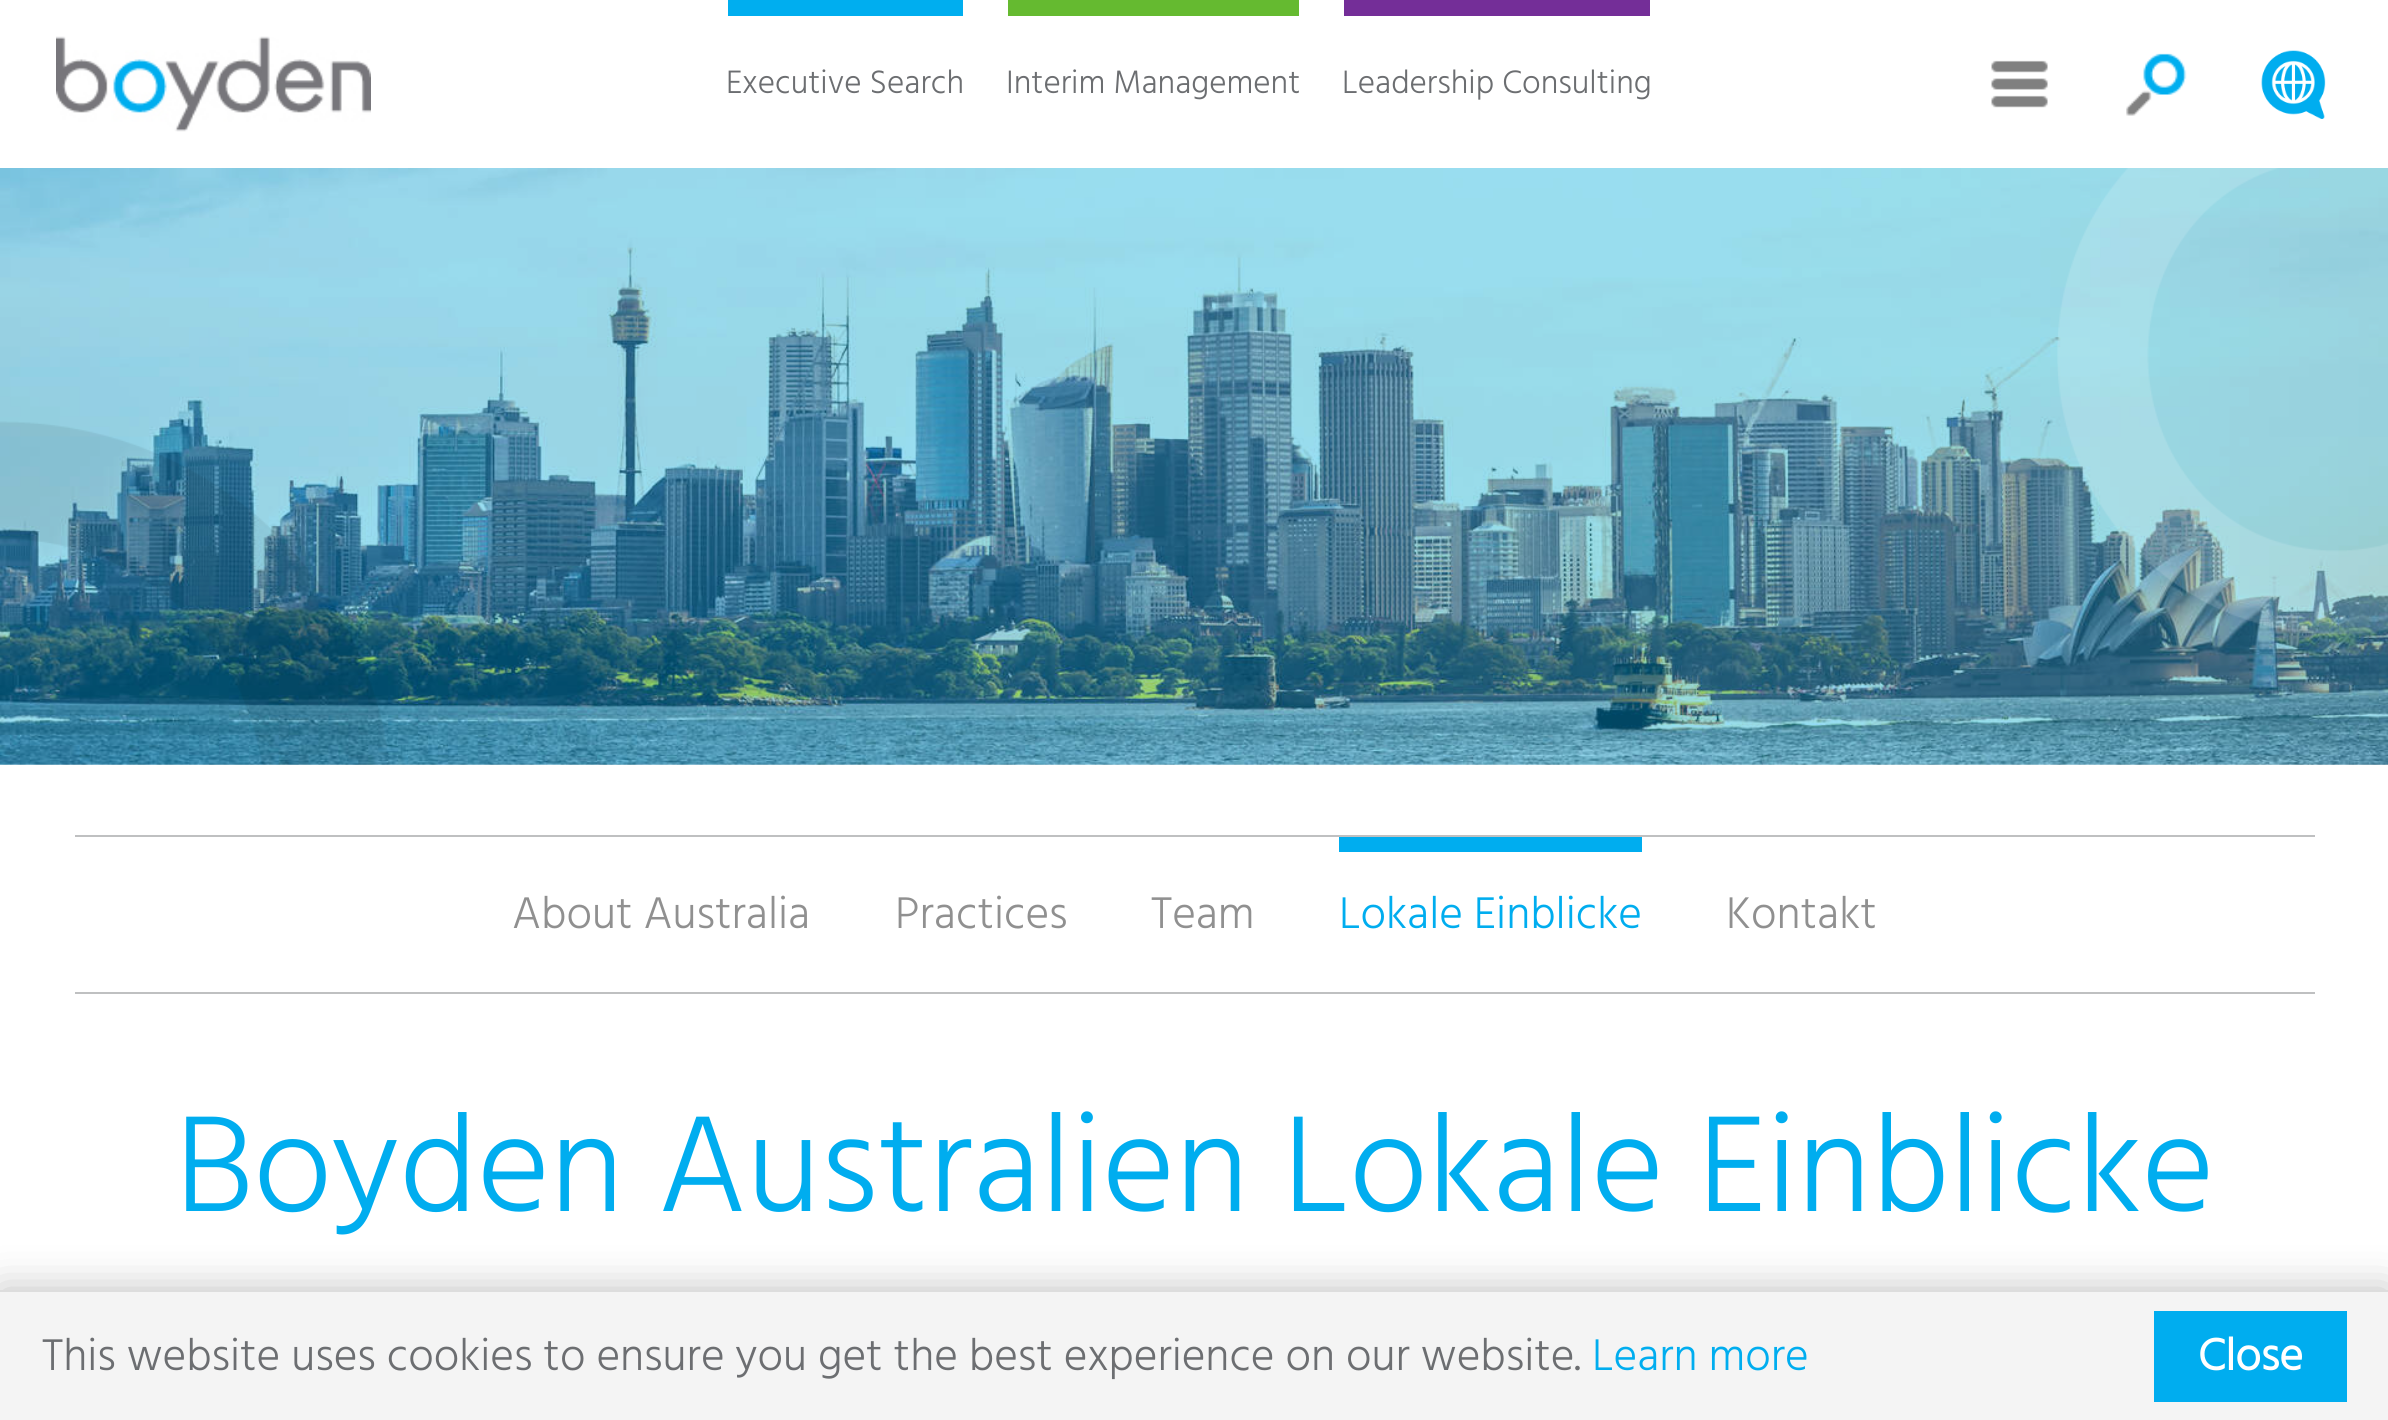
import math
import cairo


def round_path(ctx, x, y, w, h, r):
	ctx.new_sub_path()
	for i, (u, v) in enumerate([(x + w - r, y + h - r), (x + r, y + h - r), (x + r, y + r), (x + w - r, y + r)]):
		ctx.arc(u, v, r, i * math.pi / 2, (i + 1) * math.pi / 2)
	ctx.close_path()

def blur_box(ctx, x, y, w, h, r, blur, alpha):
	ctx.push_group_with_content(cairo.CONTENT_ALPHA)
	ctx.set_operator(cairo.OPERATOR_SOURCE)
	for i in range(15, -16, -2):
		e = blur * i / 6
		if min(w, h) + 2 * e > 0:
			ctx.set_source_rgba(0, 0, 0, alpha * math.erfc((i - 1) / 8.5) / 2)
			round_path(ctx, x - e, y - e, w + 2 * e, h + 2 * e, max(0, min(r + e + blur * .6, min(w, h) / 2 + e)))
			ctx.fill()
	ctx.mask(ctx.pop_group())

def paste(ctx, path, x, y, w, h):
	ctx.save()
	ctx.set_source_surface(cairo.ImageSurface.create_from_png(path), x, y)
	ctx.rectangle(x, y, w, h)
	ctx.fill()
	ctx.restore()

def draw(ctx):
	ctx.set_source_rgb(1, 1, 1)
	ctx.paint()
	paste(ctx, 'media/1.png', 56, 36, 315, 96)
	ctx.set_source_rgb(0, 0.682, 0.937)
	ctx.rectangle(728, 0, 235, 16)
	ctx.fill()
	ctx.select_font_face('Hind Light')
	ctx.set_font_size(33.25)
	ctx.set_source_rgb(0.424, 0.431, 0.443)
	ctx.move_to(726, 93)
	ctx.show_text('Executive Search')
	ctx.set_source_rgb(0.396, 0.729, 0.188)
	ctx.rectangle(1008, 0, 291, 16)
	ctx.fill()
	ctx.set_source_rgb(0.424, 0.431, 0.443)
	ctx.move_to(1006, 93)
	ctx.show_text('Interim Management')
	ctx.set_source_rgb(0.455, 0.18, 0.596)
	ctx.rectangle(1344, 0, 306, 16)
	ctx.fill()
	ctx.set_source_rgb(0.424, 0.431, 0.443)
	ctx.move_to(1342, 93)
	ctx.show_text('Leadership Consulting')
	paste(ctx, 'media/2.png', 1991, 60, 57, 48)
	paste(ctx, 'media/3.png', 2126, 53, 61, 63)
	paste(ctx, 'media/4.png', 2261, 50, 65, 69)
	paste(ctx, 'media/5.png', 0, 168, 2388, 597)
	paste(ctx, 'media/6.png', 0, 421, 390, 344)
	paste(ctx, 'media/7.png', 2057, 168, 331, 467)
	ctx.set_source_rgb(0.749, 0.753, 0.757)
	ctx.rectangle(75, 835, 2240, 2)
	ctx.fill()
	ctx.rectangle(75, 992, 2240, 2)
	ctx.fill()
	ctx.set_font_size(45.5)
	ctx.set_source_rgb(0.565, 0.565, 0.565)
	for x, y, s in [
		(512, 928, 'About Australia'),
		(895, 928, 'Practices'),
		(1151, 928, 'Team'),
	]:
		ctx.move_to(x, y)
		ctx.show_text(s)
	ctx.set_source_rgb(0, 0.678, 0.937)
	ctx.rectangle(1339, 837, 303, 15)
	ctx.fill()
	ctx.move_to(1339, 928)
	ctx.show_text('Lokale Einblicke')
	ctx.set_source_rgb(0.565, 0.565, 0.565)
	ctx.move_to(1726, 928)
	ctx.show_text('Kontakt')
	ctx.set_font_size(140)
	ctx.set_source_rgb(0, 0.678, 0.937)
	ctx.move_to(175, 1211)
	ctx.show_text('Boyden Australien Lokale Einblicke')
	ctx.set_source_rgb(0, 0, 0)
	blur_box(ctx, 0, 1290, 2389, 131, 0, 21, 0.25)
	ctx.set_source_rgb(0.957, 0.957, 0.957)
	ctx.rectangle(0, 1292, 2388, 128)
	ctx.fill()
	ctx.set_source_rgb(0.867, 0.867, 0.867)
	ctx.rectangle(0, 1290, 2388, 2)
	ctx.fill()
	ctx.set_font_size(45.5)
	ctx.set_source_rgb(0.424, 0.431, 0.443)
	ctx.move_to(42, 1370)
	ctx.show_text('This website uses cookies to ensure you get the best experience on our website.')
	ctx.set_source_rgb(0, 0.678, 0.937)
	ctx.move_to(1592, 1370)
	ctx.show_text('Learn more')
	ctx.rectangle(2154, 1311, 193, 91)
	ctx.fill()
	ctx.select_font_face('Hind', cairo.FONT_SLANT_NORMAL, cairo.FONT_WEIGHT_BOLD)
	ctx.set_source_rgb(1, 1, 1)
	ctx.move_to(2198, 1370)
	ctx.show_text('Close')


surface = cairo.ImageSurface(cairo.FORMAT_RGB24, 2388, 1420)
ctx = cairo.Context(surface)
options = cairo.FontOptions()
options.set_hint_metrics(cairo.HINT_METRICS_OFF)
options.set_hint_style(cairo.HINT_STYLE_NONE)
ctx.set_font_options(options)
ctx.set_miter_limit(4)
draw(ctx)
surface.write_to_png('image.png')
